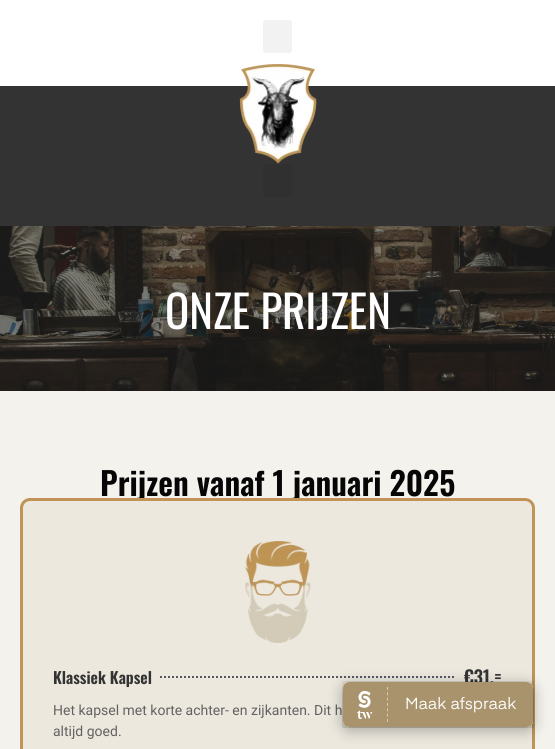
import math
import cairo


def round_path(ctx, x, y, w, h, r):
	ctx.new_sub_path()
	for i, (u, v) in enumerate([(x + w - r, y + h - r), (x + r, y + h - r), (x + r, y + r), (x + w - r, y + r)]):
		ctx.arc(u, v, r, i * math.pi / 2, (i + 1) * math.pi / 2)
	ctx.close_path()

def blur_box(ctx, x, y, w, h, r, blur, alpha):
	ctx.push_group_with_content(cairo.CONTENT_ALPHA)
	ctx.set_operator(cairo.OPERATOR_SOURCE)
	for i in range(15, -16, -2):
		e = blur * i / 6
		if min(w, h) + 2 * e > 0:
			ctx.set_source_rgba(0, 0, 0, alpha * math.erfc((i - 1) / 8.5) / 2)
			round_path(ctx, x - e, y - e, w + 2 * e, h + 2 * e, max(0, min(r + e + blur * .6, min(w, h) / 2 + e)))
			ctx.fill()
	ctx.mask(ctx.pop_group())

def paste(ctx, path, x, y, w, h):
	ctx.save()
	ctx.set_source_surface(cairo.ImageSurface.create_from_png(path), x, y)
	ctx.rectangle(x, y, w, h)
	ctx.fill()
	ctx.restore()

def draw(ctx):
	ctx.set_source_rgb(1, 1, 1)
	ctx.paint()
	ctx.set_source_rgb(0.949, 0.949, 0.949)
	round_path(ctx, 263, 20, 29, 33, 3)
	ctx.fill()
	ctx.set_source_rgb(0.2, 0.2, 0.2)
	ctx.rectangle(0, 86, 555, 140)
	ctx.fill()
	paste(ctx, 'media/1.png', 239, 63, 78, 101)
	ctx.set_source_rgb(0.188, 0.188, 0.188)
	round_path(ctx, 263, 164, 29, 33, 3)
	ctx.fill()
	paste(ctx, 'media/2.png', 0, 226, 555, 165)
	ctx.select_font_face('Oswald')
	ctx.set_font_size(45)
	ctx.set_source_rgb(1, 1, 1)
	ctx.move_to(165, 329)
	ctx.show_text('ONZE PRIJZEN')
	ctx.set_source_rgb(0.957, 0.949, 0.922)
	ctx.rectangle(0, 391, 555, 358)
	ctx.fill()
	ctx.select_font_face('Oswald SemiBold')
	ctx.set_font_size(32)
	ctx.set_source_rgb(0.027, 0.024, 0.024)
	ctx.move_to(100, 496)
	ctx.show_text('Prijzen vanaf 1 januari 2025')
	ctx.set_source_rgb(0.925, 0.91, 0.871)
	round_path(ctx, 21.5, 499.5, 512, 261, 8.5)
	ctx.fill_preserve()
	ctx.set_source_rgb(0.749, 0.58, 0.337)
	ctx.set_line_width(3)
	ctx.stroke()
	paste(ctx, 'media/3.png', 245, 541, 66, 102)
	ctx.set_font_size(16)
	ctx.set_source_rgb(0.2, 0.2, 0.2)
	ctx.move_to(53, 684)
	ctx.show_text('Klassiek Kapsel')
	ctx.new_path()
	ctx.move_to(160, 677)
	ctx.line_to(456, 677)
	ctx.set_source_rgb(0.329, 0.349, 0.373)
	ctx.set_line_width(2)
	ctx.set_dash([2, 2])
	ctx.stroke()
	ctx.set_font_size(18)
	ctx.set_source_rgb(0.2, 0.2, 0.2)
	ctx.move_to(464, 684)
	ctx.show_text('€31.=')
	ctx.select_font_face('Roboto')
	ctx.set_font_size(14)
	ctx.set_source_rgb(0.388, 0.384, 0.384)
	ctx.move_to(53, 715)
	ctx.show_text('Het kapsel met korte achter- en zijkanten. Dit h')
	ctx.move_to(53, 736)
	ctx.show_text('altijd goed.')
	ctx.set_source_rgb(0, 0, 0)
	blur_box(ctx, 343, 685, 190, 45, 6, 7.5, 0.3)
	paste(ctx, 'media/4.png', 342, 681, 192, 47)


surface = cairo.ImageSurface(cairo.FORMAT_RGB24, 555, 749)
ctx = cairo.Context(surface)
options = cairo.FontOptions()
options.set_hint_metrics(cairo.HINT_METRICS_OFF)
options.set_hint_style(cairo.HINT_STYLE_NONE)
ctx.set_font_options(options)
ctx.set_miter_limit(4)
draw(ctx)
surface.write_to_png('image.png')
